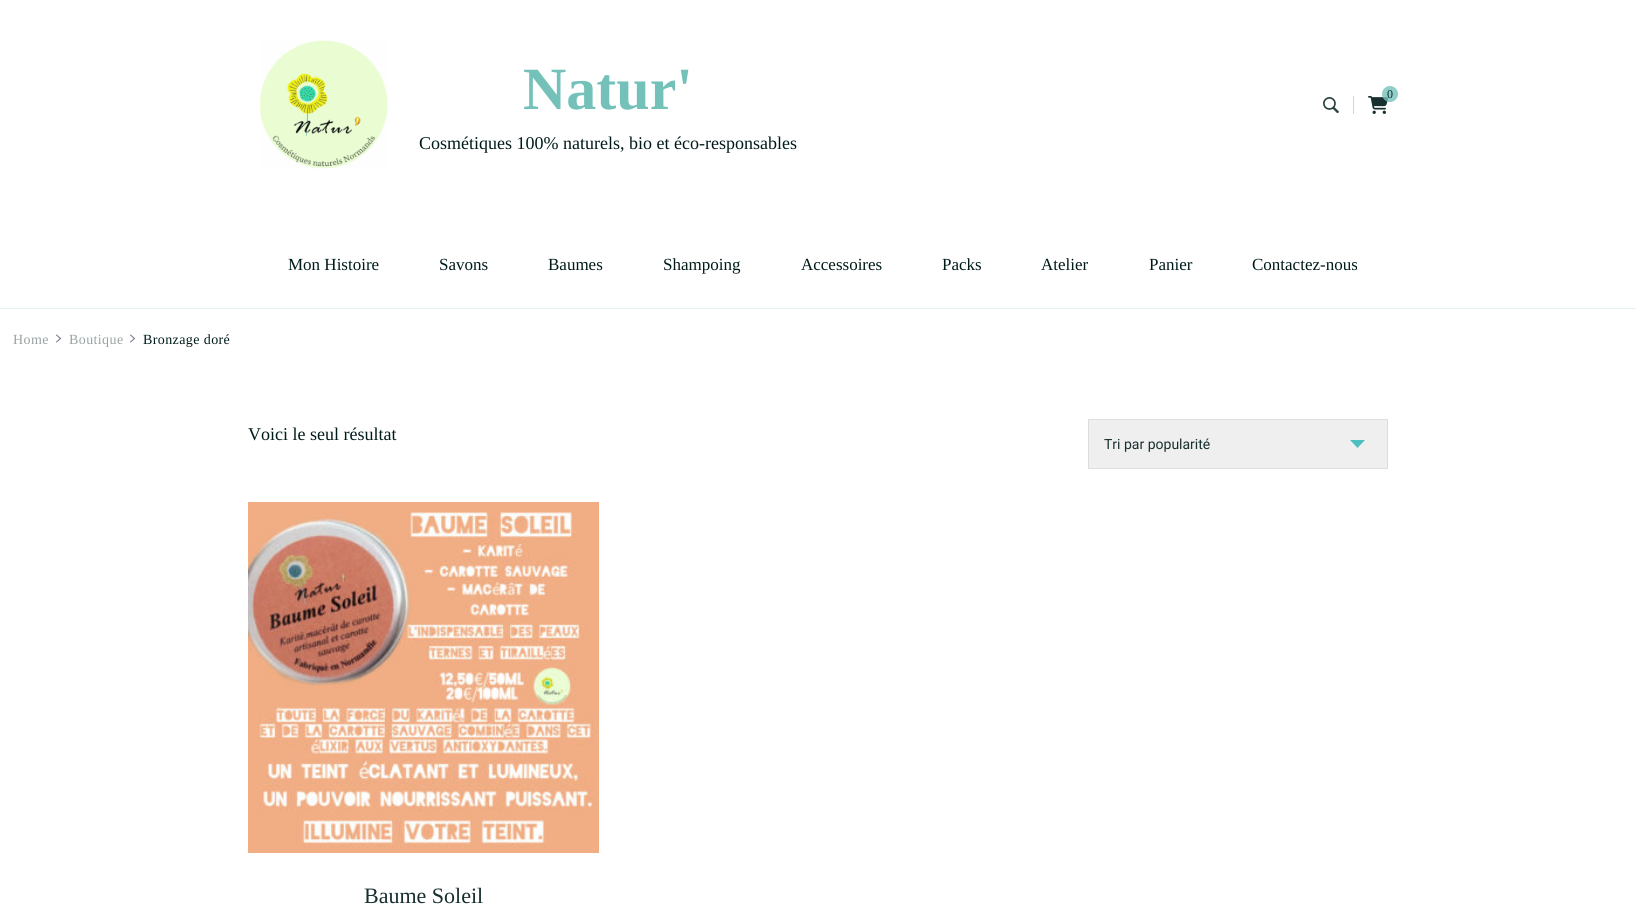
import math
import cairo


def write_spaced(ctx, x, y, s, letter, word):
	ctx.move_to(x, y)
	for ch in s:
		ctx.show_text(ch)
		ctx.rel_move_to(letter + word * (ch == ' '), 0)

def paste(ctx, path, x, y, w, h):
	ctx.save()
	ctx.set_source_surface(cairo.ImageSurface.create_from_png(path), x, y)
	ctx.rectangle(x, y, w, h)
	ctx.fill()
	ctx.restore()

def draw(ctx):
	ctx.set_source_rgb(1, 1, 1)
	ctx.paint()
	paste(ctx, 'media/1.png', 260, 40, 128, 129)
	ctx.select_font_face('Liberation Serif', cairo.FONT_SLANT_NORMAL, cairo.FONT_WEIGHT_BOLD)
	ctx.set_font_size(60)
	ctx.set_source_rgb(0.455, 0.757, 0.729)
	ctx.move_to(523, 109)
	ctx.show_text('Natur\'')
	ctx.select_font_face('Liberation Serif')
	ctx.set_font_size(18)
	ctx.set_source_rgb(0, 0.102, 0.102)
	ctx.move_to(419, 149)
	ctx.show_text('Cosmétiques 100% naturels, bio et éco-responsables')
	ctx.set_source_rgb(0.729, 0.878, 0.867)
	ctx.rectangle(1353, 96, 1, 18)
	ctx.fill()
	paste(ctx, 'media/2.png', 1368, 96, 21, 18)
	ctx.set_source_rgba(0.455, 0.757, 0.729, 0.8)
	ctx.arc(1390, 94, 8, 0, 2 * math.pi)
	ctx.fill()
	ctx.set_font_size(12)
	ctx.set_source_rgb(0.055, 0.173, 0.169)
	ctx.move_to(1387, 98)
	ctx.show_text('0')
	paste(ctx, 'media/3.png', 1323, 97, 16, 16)
	ctx.set_source_rgb(0.89, 0.953, 0.945)
	ctx.rectangle(0, 308, 1636, 1)
	ctx.fill()
	ctx.set_font_size(17)
	ctx.set_source_rgb(0, 0.102, 0.102)
	for x, y, s in [
		(288, 270, 'Mon Histoire'),
		(439, 270, 'Savons'),
		(548, 270, 'Baumes'),
		(663, 270, 'Shampoing'),
		(801, 270, 'Accessoires'),
		(942, 270, 'Packs'),
		(1041, 270, 'Atelier'),
		(1149, 270, 'Panier'),
		(1252, 270, 'Contactez-nous'),
	]:
		ctx.move_to(x, y)
		ctx.show_text(s)
	ctx.set_font_size(14)
	ctx.set_source_rgb(0.6, 0.639, 0.639)
	write_spaced(ctx, 13, 344, 'Home', 0.4, 0)
	ctx.new_path()
	ctx.move_to(56.5, 335)
	ctx.line_to(60.5, 338.5)
	ctx.line_to(56.5, 342)
	ctx.set_source_rgb(0.49, 0.416, 0.569)
	ctx.set_line_width(1)
	ctx.set_line_cap(cairo.LINE_CAP_ROUND)
	ctx.stroke()
	ctx.set_source_rgb(0.6, 0.639, 0.639)
	write_spaced(ctx, 69, 344, 'Boutique', 0.4, 0)
	ctx.new_path()
	ctx.move_to(130.5, 335)
	ctx.line_to(134.5, 338.5)
	ctx.line_to(130.5, 342)
	ctx.set_source_rgb(0.49, 0.416, 0.569)
	ctx.stroke()
	ctx.set_source_rgb(0, 0.102, 0.102)
	write_spaced(ctx, 143, 344, 'Bronzage doré', 0.4, 0)
	ctx.set_font_size(18)
	ctx.move_to(248, 440)
	ctx.show_text('Voici le seul résultat')
	ctx.set_source_rgb(0.937, 0.937, 0.937)
	ctx.rectangle(1089, 420, 298, 48)
	ctx.fill()
	ctx.set_source_rgb(0.298, 0.749, 0.749)
	ctx.new_path()
	ctx.move_to(1357.5, 448)
	ctx.line_to(1350, 440)
	ctx.line_to(1365, 440)
	ctx.close_path()
	ctx.fill()
	ctx.rectangle(1088.5, 419.5, 299, 49)
	ctx.set_source_rgb(0.863, 0.871, 0.871)
	ctx.set_line_cap(cairo.LINE_CAP_BUTT)
	ctx.stroke()
	ctx.select_font_face('Roboto')
	ctx.set_font_size(14)
	ctx.set_source_rgb(0.094, 0.184, 0.184)
	ctx.move_to(1104, 449)
	ctx.show_text('Tri par popularité')
	paste(ctx, 'media/4.png', 248, 502, 351, 351)
	ctx.select_font_face('Liberation Serif')
	ctx.set_font_size(22)
	ctx.move_to(364, 903)
	ctx.show_text('Baume Soleil')


surface = cairo.ImageSurface(cairo.FORMAT_RGB24, 1636, 921)
ctx = cairo.Context(surface)
options = cairo.FontOptions()
options.set_hint_metrics(cairo.HINT_METRICS_OFF)
options.set_hint_style(cairo.HINT_STYLE_NONE)
ctx.set_font_options(options)
ctx.set_miter_limit(4)
draw(ctx)
surface.write_to_png('image.png')
